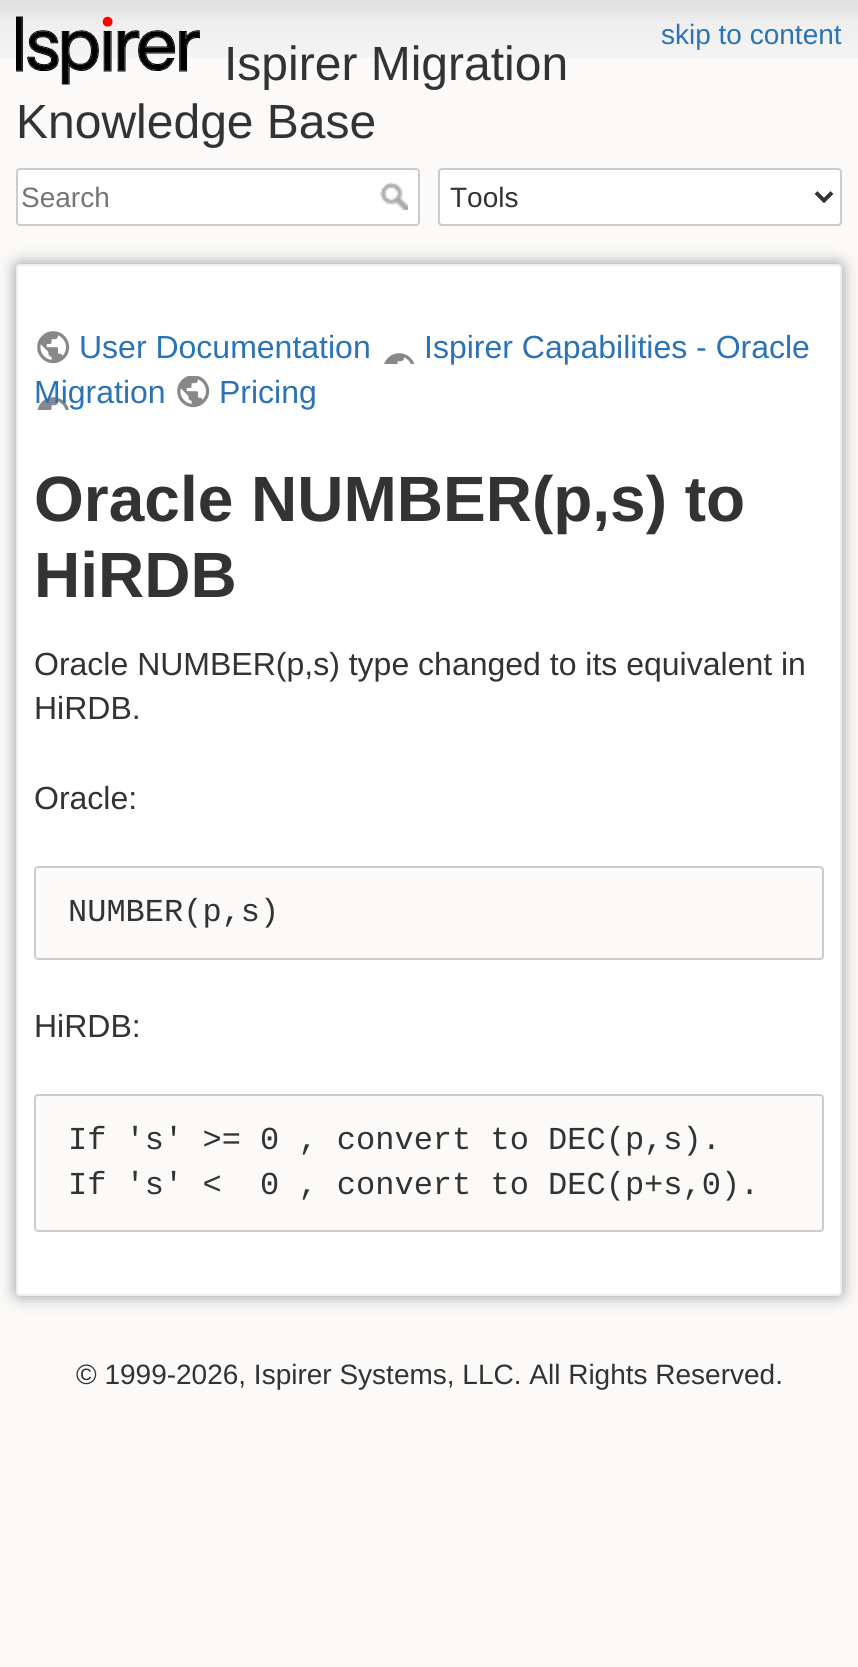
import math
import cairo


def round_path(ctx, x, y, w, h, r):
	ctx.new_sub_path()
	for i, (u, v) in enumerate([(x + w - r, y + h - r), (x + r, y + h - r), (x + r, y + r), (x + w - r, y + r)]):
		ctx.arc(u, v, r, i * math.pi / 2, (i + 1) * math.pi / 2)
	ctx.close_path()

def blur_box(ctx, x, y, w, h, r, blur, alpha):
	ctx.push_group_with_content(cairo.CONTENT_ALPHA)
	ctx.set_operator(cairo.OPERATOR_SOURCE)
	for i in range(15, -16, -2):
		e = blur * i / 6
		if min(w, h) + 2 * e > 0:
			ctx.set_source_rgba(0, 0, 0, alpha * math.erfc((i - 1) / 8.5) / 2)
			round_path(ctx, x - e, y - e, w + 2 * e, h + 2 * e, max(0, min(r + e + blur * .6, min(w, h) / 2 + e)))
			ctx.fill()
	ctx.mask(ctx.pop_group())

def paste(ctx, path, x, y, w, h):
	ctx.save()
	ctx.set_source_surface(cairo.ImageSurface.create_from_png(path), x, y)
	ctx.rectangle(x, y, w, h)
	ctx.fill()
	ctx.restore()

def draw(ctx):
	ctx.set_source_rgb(0.984, 0.98, 0.976)
	ctx.paint()
	paste(ctx, 'media/1.png', 0, 0, 858, 58)
	ctx.select_font_face('Liberation Sans')
	ctx.set_font_size(28)
	ctx.set_source_rgb(0.169, 0.451, 0.718)
	ctx.move_to(661, 44)
	ctx.show_text('skip to content')
	paste(ctx, 'media/2.png', 16, 16, 184, 69)
	ctx.set_font_size(48)
	ctx.set_source_rgb(0.2, 0.2, 0.2)
	ctx.move_to(224, 80)
	ctx.show_text('Ispirer Migration')
	ctx.move_to(16, 138)
	ctx.show_text('Knowledge Base')
	ctx.set_source_rgb(1, 1, 1)
	round_path(ctx, 17, 169, 402, 56, 3)
	ctx.fill_preserve()
	ctx.set_source_rgb(0.8, 0.8, 0.8)
	ctx.stroke()
	ctx.set_font_size(28)
	ctx.set_source_rgb(0.459, 0.459, 0.459)
	ctx.move_to(21, 207)
	ctx.show_text('Search')
	paste(ctx, 'media/3.png', 380, 182, 28, 28)
	ctx.set_source_rgb(1, 1, 1)
	round_path(ctx, 439, 169, 402, 56, 3)
	ctx.fill_preserve()
	ctx.set_source_rgb(0.8, 0.8, 0.8)
	ctx.stroke()
	ctx.new_path()
	ctx.move_to(816, 192.5)
	ctx.line_to(824, 200.5)
	ctx.line_to(832, 192.5)
	ctx.set_source_rgb(0.2, 0.2, 0.2)
	ctx.set_line_width(4)
	ctx.stroke()
	ctx.move_to(450, 207)
	ctx.show_text('Tools')
	ctx.set_source_rgb(0.6, 0.6, 0.6)
	blur_box(ctx, 16, 264, 826, 1032, 4, 8, 1)
	ctx.set_source_rgb(1, 1, 1)
	round_path(ctx, 17, 265, 824, 1030, 3)
	ctx.fill_preserve()
	ctx.set_source_rgb(0.933, 0.933, 0.933)
	ctx.set_line_width(2)
	ctx.stroke()
	paste(ctx, 'media/4.png', 37, 331, 33, 33)
	ctx.set_font_size(32)
	ctx.set_source_rgb(0.169, 0.451, 0.718)
	ctx.move_to(79, 358)
	ctx.show_text('User Documentation')
	ctx.move_to(424, 358)
	ctx.show_text('Ispirer Capabilities - Oracle')
	paste(ctx, 'media/5.png', 37, 353, 378, 57)
	ctx.move_to(34, 403)
	ctx.show_text('Migration')
	paste(ctx, 'media/6.png', 177, 376, 33, 32)
	ctx.move_to(219, 403)
	ctx.show_text('Pricing')
	ctx.select_font_face('Liberation Sans', cairo.FONT_SLANT_NORMAL, cairo.FONT_WEIGHT_BOLD)
	ctx.set_font_size(64)
	ctx.set_source_rgb(0.2, 0.2, 0.2)
	ctx.move_to(34, 521)
	ctx.show_text('Oracle NUMBER(p,s) to')
	ctx.move_to(34, 597)
	ctx.show_text('HiRDB')
	ctx.select_font_face('Liberation Sans')
	ctx.set_font_size(32)
	for x, y, s in [
		(34, 675, 'Oracle NUMBER(p,s) type changed to its equivalent in'),
		(34, 719, 'HiRDB.'),
		(34, 809, 'Oracle:'),
	]:
		ctx.move_to(x, y)
		ctx.show_text(s)
	ctx.set_source_rgb(0.984, 0.98, 0.976)
	round_path(ctx, 35, 867, 788, 92, 3)
	ctx.fill_preserve()
	ctx.set_source_rgb(0.8, 0.8, 0.8)
	ctx.stroke()
	ctx.select_font_face('Liberation Mono')
	ctx.set_source_rgb(0.2, 0.2, 0.2)
	ctx.move_to(68, 921)
	ctx.show_text('NUMBER(p,s)')
	ctx.select_font_face('Liberation Sans')
	ctx.move_to(34, 1037)
	ctx.show_text('HiRDB:')
	ctx.set_source_rgb(0.984, 0.98, 0.976)
	round_path(ctx, 35, 1095, 788, 136, 3)
	ctx.fill_preserve()
	ctx.set_source_rgb(0.8, 0.8, 0.8)
	ctx.stroke()
	ctx.select_font_face('Liberation Mono')
	ctx.set_source_rgb(0.2, 0.2, 0.2)
	ctx.move_to(68, 1149)
	ctx.show_text('If \'s\' >= 0 , convert to DEC(p,s).')
	ctx.move_to(68, 1194)
	ctx.show_text('If \'s\' <  0 , convert to DEC(p+s,0).')
	ctx.select_font_face('Liberation Sans')
	ctx.set_font_size(28)
	ctx.move_to(76, 1384)
	ctx.show_text('© 1999-2026, Ispirer Systems, LLC. All Rights Reserved.')


surface = cairo.ImageSurface(cairo.FORMAT_RGB24, 858, 1667)
ctx = cairo.Context(surface)
options = cairo.FontOptions()
options.set_hint_metrics(cairo.HINT_METRICS_OFF)
options.set_hint_style(cairo.HINT_STYLE_NONE)
ctx.set_font_options(options)
ctx.set_miter_limit(4)
draw(ctx)
surface.write_to_png('image.png')
